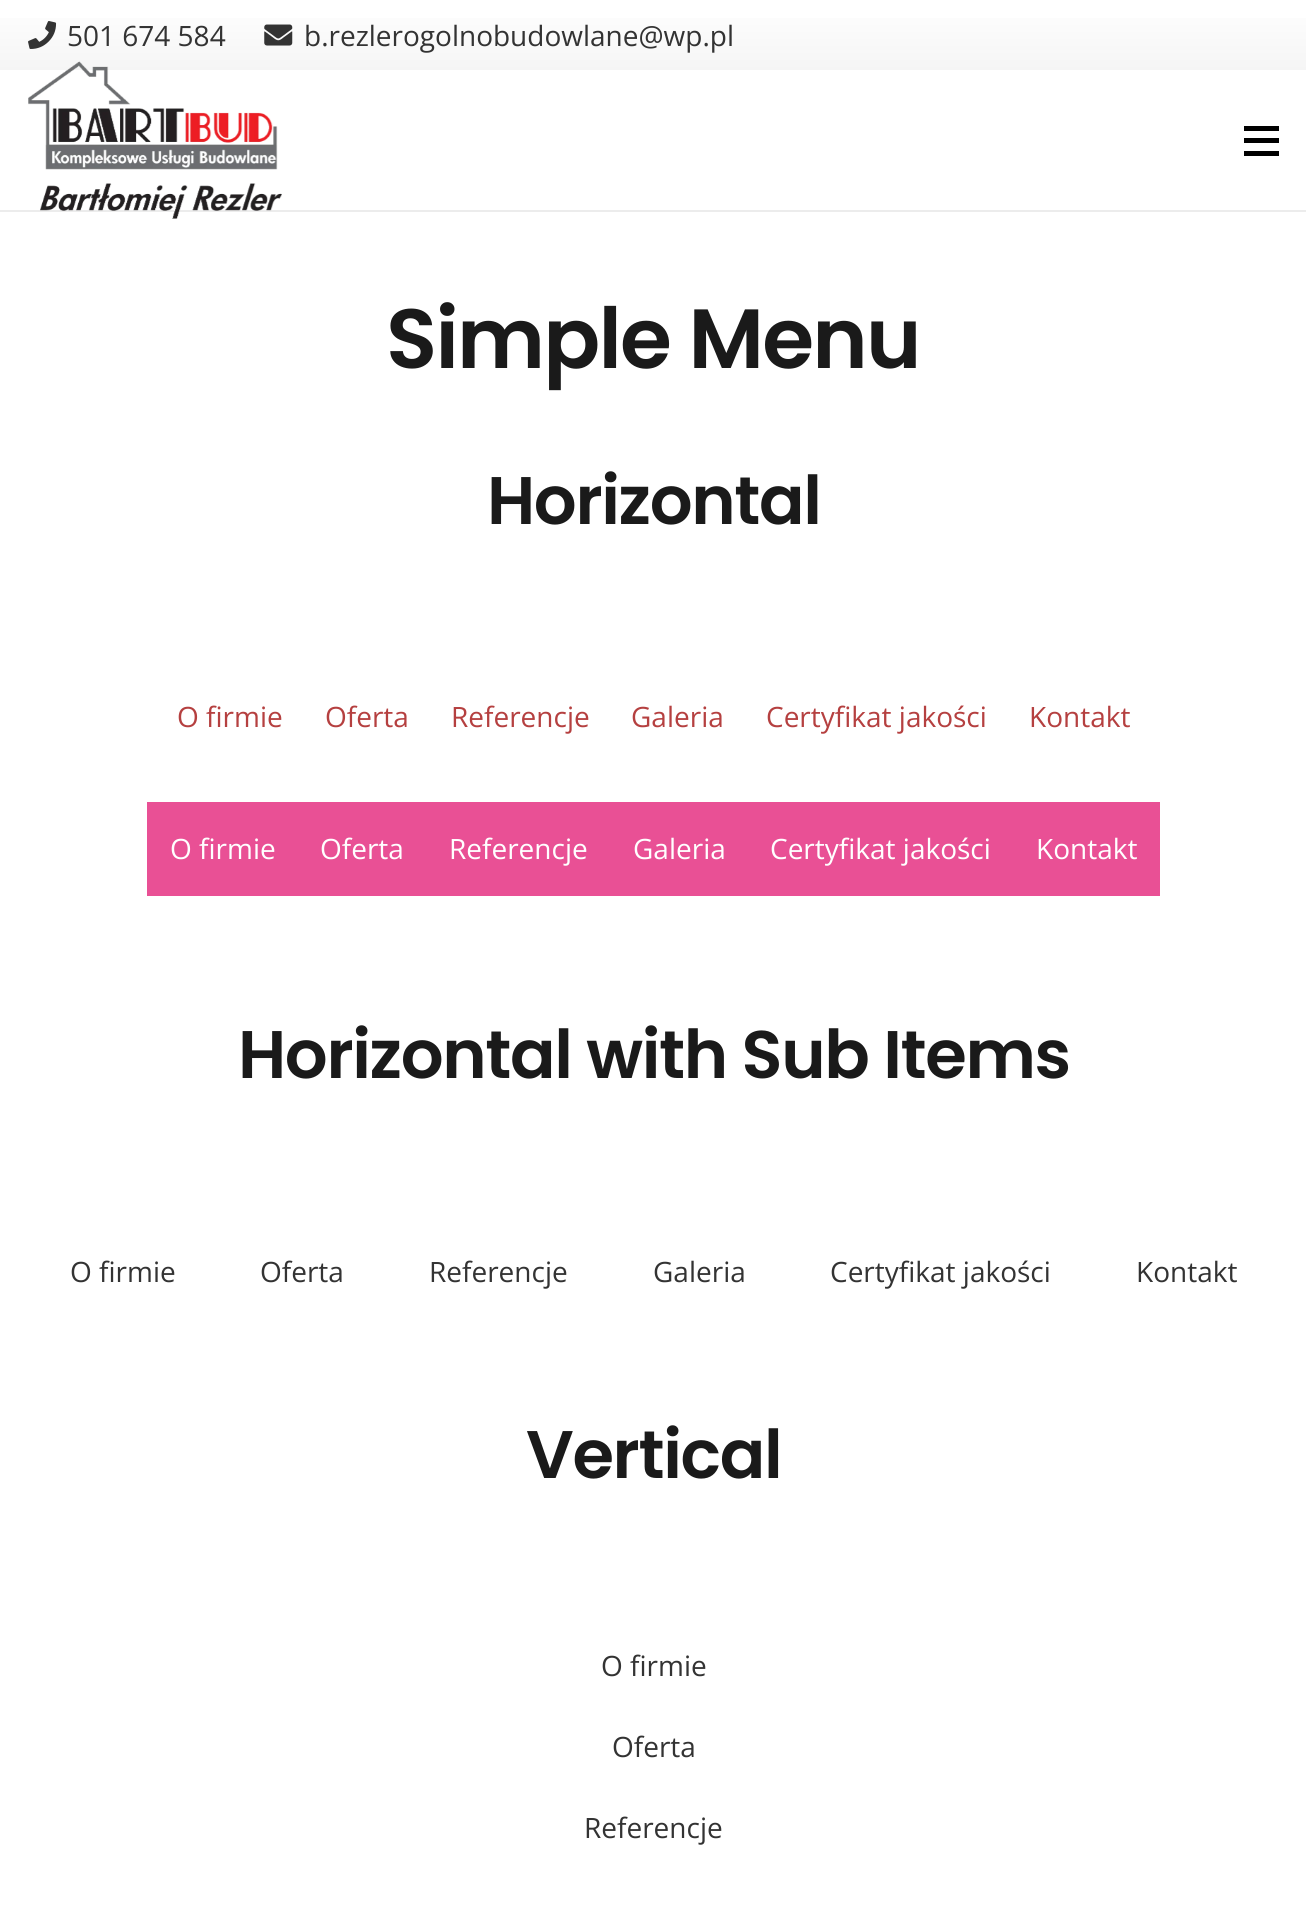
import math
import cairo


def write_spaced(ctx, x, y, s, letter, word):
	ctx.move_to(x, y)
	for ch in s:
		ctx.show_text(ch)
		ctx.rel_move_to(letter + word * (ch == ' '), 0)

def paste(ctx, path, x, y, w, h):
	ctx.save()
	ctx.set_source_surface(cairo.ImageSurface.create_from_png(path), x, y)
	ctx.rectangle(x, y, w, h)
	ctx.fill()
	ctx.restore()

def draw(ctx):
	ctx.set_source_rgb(1, 1, 1)
	ctx.paint()
	gradient = cairo.LinearGradient(654, 70, 654, 0)
	gradient.add_color_stop_rgba(0, 0.961, 0.961, 0.961, 1)
	gradient.add_color_stop_rgba(1, 1, 1, 1, 1)
	ctx.set_source(gradient)
	ctx.rectangle(0, 18, 1306, 52)
	ctx.fill()
	paste(ctx, 'media/1.png', 28, 21, 29, 28)
	ctx.select_font_face('Open Sans')
	ctx.set_font_size(28)
	ctx.set_source_rgb(0.2, 0.2, 0.2)
	ctx.move_to(67, 46)
	ctx.show_text('501 674 584')
	paste(ctx, 'media/2.png', 264, 24, 29, 22)
	ctx.move_to(304, 46)
	ctx.show_text('b.rezlerogolnobudowlane@wp.pl')
	ctx.set_source_rgb(0.922, 0.922, 0.922)
	ctx.rectangle(0, 210, 1306, 2)
	ctx.fill()
	paste(ctx, 'media/3.png', 28, 61, 254, 158)
	ctx.set_source_rgb(0, 0, 0)
	ctx.rectangle(1244, 138, 35, 5)
	ctx.rectangle(1244, 126, 35, 5)
	ctx.rectangle(1244, 151, 35, 5)
	ctx.fill()
	ctx.select_font_face('Poppins SemiBold')
	ctx.set_font_size(84)
	ctx.set_source_rgb(0.102, 0.102, 0.102)
	write_spaced(ctx, 386, 368, 'Simple Menu', -1.75, 0)
	ctx.set_font_size(67.25)
	write_spaced(ctx, 487, 524, 'Horizontal', -1.35, 0)
	ctx.select_font_face('Open Sans')
	ctx.set_font_size(28)
	ctx.set_source_rgb(0.71, 0.251, 0.251)
	for x, y, s in [
		(177, 727, 'O firmie'),
		(325, 727, 'Oferta'),
		(451, 727, 'Referencje'),
		(631, 727, 'Galeria'),
		(766, 727, 'Certyfikat jakości'),
		(1029, 727, 'Kontakt'),
	]:
		ctx.move_to(x, y)
		ctx.show_text(s)
	ctx.set_source_rgb(0.914, 0.314, 0.584)
	ctx.rectangle(147, 802, 1013, 94)
	ctx.fill()
	ctx.set_source_rgb(1, 1, 1)
	for x, y, s in [
		(170, 859, 'O firmie'),
		(320, 859, 'Oferta'),
		(449, 859, 'Referencje'),
		(633, 859, 'Galeria'),
		(770, 859, 'Certyfikat jakości'),
		(1036, 859, 'Kontakt'),
	]:
		ctx.move_to(x, y)
		ctx.show_text(s)
	ctx.select_font_face('Poppins SemiBold')
	ctx.set_font_size(67.25)
	ctx.set_source_rgb(0.102, 0.102, 0.102)
	write_spaced(ctx, 238, 1078, 'Horizontal with Sub Items', -1.35, 0)
	ctx.select_font_face('Open Sans')
	ctx.set_font_size(28)
	ctx.set_source_rgb(0.2, 0.2, 0.2)
	for x, y, s in [
		(70, 1282, 'O firmie'),
		(260, 1282, 'Oferta'),
		(429, 1282, 'Referencje'),
		(653, 1282, 'Galeria'),
		(830, 1282, 'Certyfikat jakości'),
		(1136, 1282, 'Kontakt'),
	]:
		ctx.move_to(x, y)
		ctx.show_text(s)
	ctx.select_font_face('Poppins SemiBold')
	ctx.set_font_size(67.25)
	ctx.set_source_rgb(0.102, 0.102, 0.102)
	write_spaced(ctx, 526, 1478, 'Vertical', -1.35, 0)
	ctx.select_font_face('Open Sans')
	ctx.set_font_size(28)
	ctx.set_source_rgb(0.2, 0.2, 0.2)
	for x, y, s in [
		(601, 1676, 'O firmie'),
		(612, 1757, 'Oferta'),
		(584, 1838, 'Referencje'),
	]:
		ctx.move_to(x, y)
		ctx.show_text(s)


surface = cairo.ImageSurface(cairo.FORMAT_RGB24, 1306, 1913)
ctx = cairo.Context(surface)
options = cairo.FontOptions()
options.set_hint_metrics(cairo.HINT_METRICS_OFF)
options.set_hint_style(cairo.HINT_STYLE_NONE)
ctx.set_font_options(options)
ctx.set_miter_limit(4)
draw(ctx)
surface.write_to_png('image.png')
